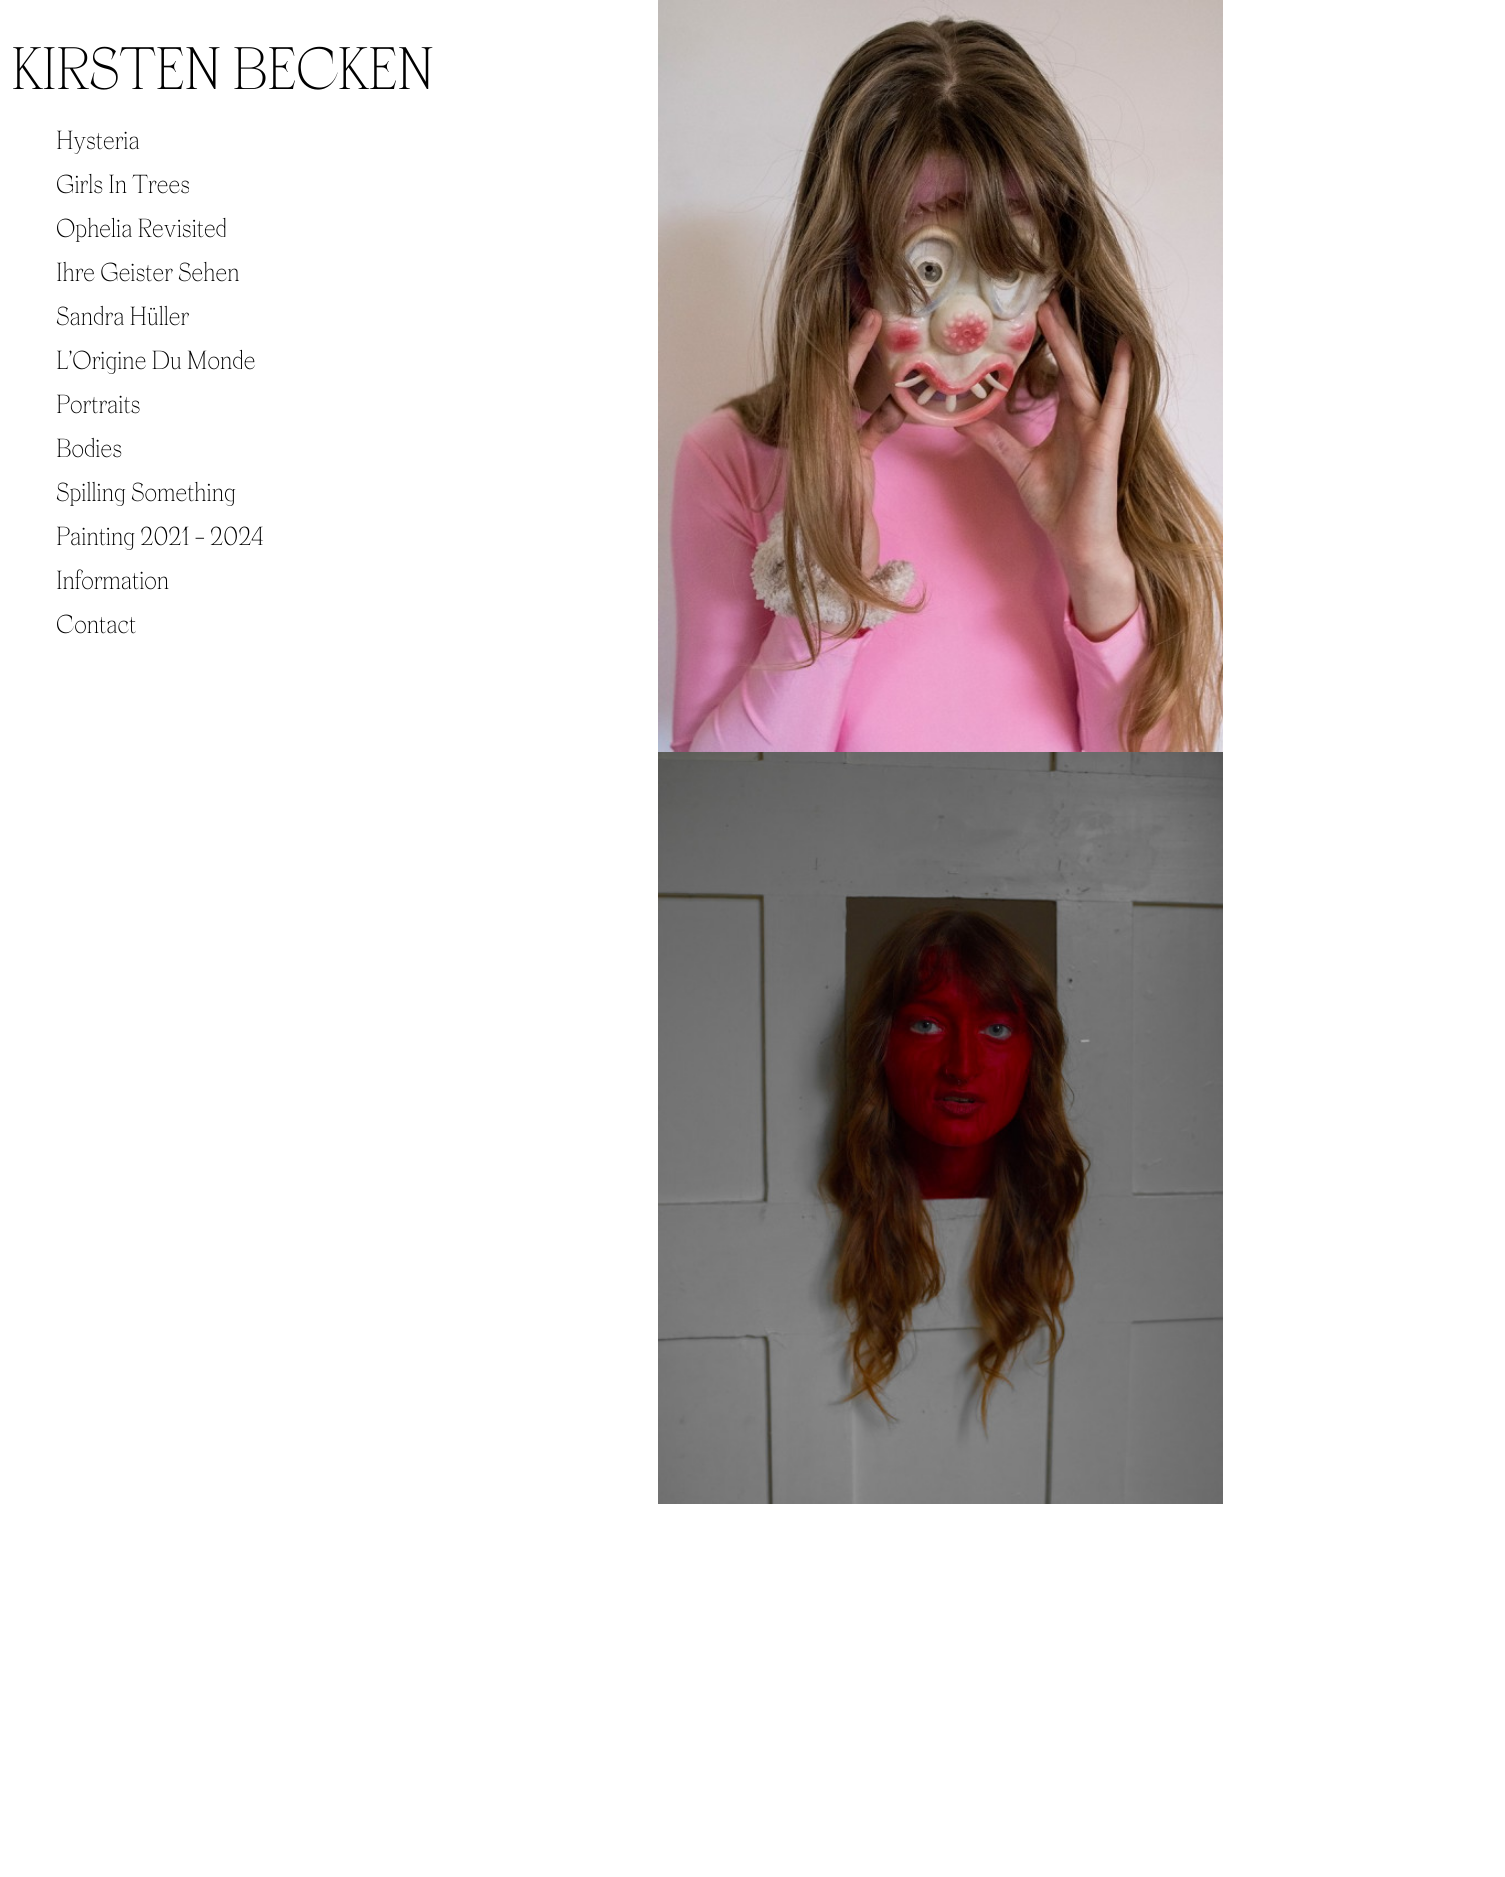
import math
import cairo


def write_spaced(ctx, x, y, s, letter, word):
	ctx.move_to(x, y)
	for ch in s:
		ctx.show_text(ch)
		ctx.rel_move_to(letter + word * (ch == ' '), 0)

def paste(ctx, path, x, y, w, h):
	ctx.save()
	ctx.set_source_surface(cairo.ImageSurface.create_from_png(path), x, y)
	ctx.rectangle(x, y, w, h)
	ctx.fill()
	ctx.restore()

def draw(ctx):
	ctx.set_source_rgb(1, 1, 1)
	ctx.paint()
	ctx.select_font_face('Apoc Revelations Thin')
	ctx.set_font_size(55)
	ctx.set_source_rgb(0, 0, 0)
	write_spaced(ctx, 11, 89, 'KIRSTEN BECKEN', -0.5, 0)
	paste(ctx, 'media/1.png', 658, 0, 565, 752)
	paste(ctx, 'media/2.png', 658, 752, 565, 752)
	ctx.set_font_size(24)
	for x, y, s in [
		(56, 149, 'Hysteria'),
		(56, 193, 'Girls In Trees'),
		(56, 237, 'Ophelia Revisited'),
		(56, 281, 'Ihre Geister Sehen'),
		(56, 325, 'Sandra Hüller'),
		(56, 369, 'L’Origine Du Monde'),
		(56, 413, 'Portraits'),
		(56, 457, 'Bodies'),
		(56, 501, 'Spilling Something'),
		(56, 545, 'Painting 2021 – 2024'),
		(56, 589, 'Information'),
		(56, 633, 'Contact'),
	]:
		ctx.move_to(x, y)
		ctx.show_text(s)


surface = cairo.ImageSurface(cairo.FORMAT_RGB24, 1505, 1877)
ctx = cairo.Context(surface)
options = cairo.FontOptions()
options.set_hint_metrics(cairo.HINT_METRICS_OFF)
options.set_hint_style(cairo.HINT_STYLE_NONE)
ctx.set_font_options(options)
ctx.set_miter_limit(4)
draw(ctx)
surface.write_to_png('image.png')
